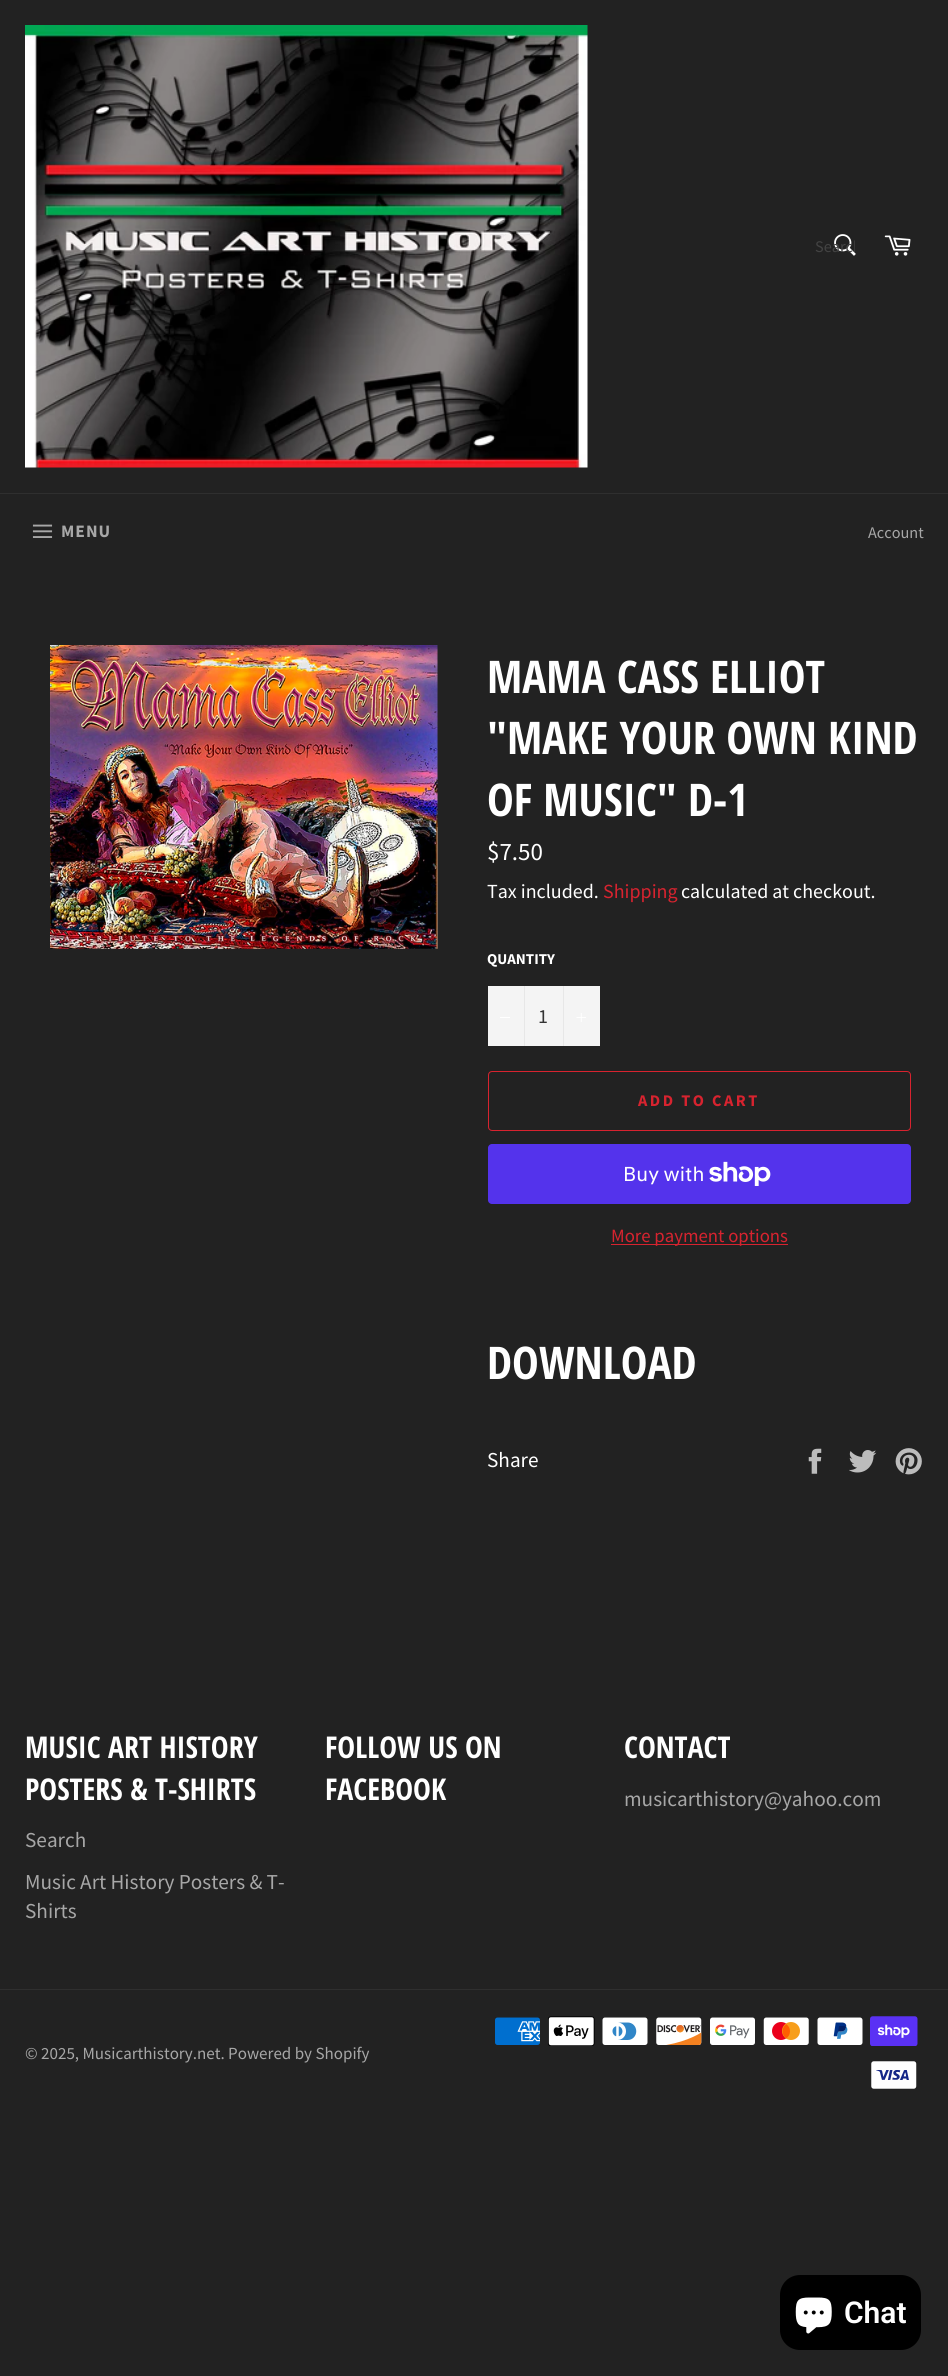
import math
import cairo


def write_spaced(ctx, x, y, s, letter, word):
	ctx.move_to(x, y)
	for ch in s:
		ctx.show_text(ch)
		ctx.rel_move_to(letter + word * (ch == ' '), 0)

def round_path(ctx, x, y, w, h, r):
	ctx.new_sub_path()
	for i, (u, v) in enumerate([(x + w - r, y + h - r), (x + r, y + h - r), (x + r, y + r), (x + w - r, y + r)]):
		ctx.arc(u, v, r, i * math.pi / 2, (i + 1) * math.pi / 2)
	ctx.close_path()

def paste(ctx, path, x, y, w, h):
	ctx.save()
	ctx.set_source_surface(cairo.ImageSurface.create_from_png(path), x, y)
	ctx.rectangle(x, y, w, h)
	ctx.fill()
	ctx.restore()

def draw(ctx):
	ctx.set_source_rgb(0.133, 0.133, 0.133)
	ctx.paint()
	paste(ctx, 'media/1.png', 25, 25, 563, 443)
	paste(ctx, 'media/2.png', 834, 234, 22, 22)
	ctx.save()
	ctx.rectangle(815, 236, 40, 22)
	ctx.clip()
	ctx.select_font_face('Source Sans Pro')
	ctx.set_font_size(16.25)
	ctx.set_source_rgb(0.263, 0.263, 0.263)
	ctx.move_to(815, 252)
	ctx.show_text('Search')
	ctx.restore()
	paste(ctx, 'media/3.png', 884, 235, 27, 21)
	ctx.set_source_rgb(0.184, 0.184, 0.184)
	ctx.rectangle(0, 493, 948, 1)
	ctx.fill()
	paste(ctx, 'media/4.png', 32, 524, 21, 14)
	ctx.select_font_face('Source Sans Pro', cairo.FONT_SLANT_NORMAL, cairo.FONT_WEIGHT_BOLD)
	ctx.set_font_size(17.5)
	ctx.set_source_rgb(0.655, 0.655, 0.655)
	write_spaced(ctx, 61, 537, 'MENU', 1, 0)
	ctx.select_font_face('Source Sans Pro')
	ctx.set_font_size(16.25)
	ctx.move_to(868, 538)
	ctx.show_text('Account')
	paste(ctx, 'media/5.png', 50, 645, 388, 304)
	ctx.select_font_face('Open Sans Condensed', cairo.FONT_SLANT_NORMAL, cairo.FONT_WEIGHT_BOLD)
	ctx.set_font_size(45)
	ctx.set_source_rgb(1, 1, 1)
	for x, y, s in [
		(487, 693, 'MAMA CASS ELLIOT'),
		(487, 754, '"MAKE YOUR OWN KIND'),
		(487, 816, 'OF MUSIC" D-1'),
	]:
		ctx.move_to(x, y)
		ctx.show_text(s)
	ctx.select_font_face('Source Sans Pro')
	ctx.set_font_size(25)
	ctx.move_to(487, 860)
	ctx.show_text('$7.50')
	ctx.set_font_size(20)
	ctx.move_to(487, 898)
	ctx.show_text('Tax included.')
	ctx.set_source_rgb(0.847, 0.137, 0.184)
	ctx.move_to(603, 898)
	ctx.show_text('Shipping')
	ctx.set_source_rgb(1, 1, 1)
	ctx.move_to(681, 898)
	ctx.show_text('calculated at checkout.')
	ctx.select_font_face('Source Sans Pro', cairo.FONT_SLANT_NORMAL, cairo.FONT_WEIGHT_BOLD)
	ctx.set_font_size(15)
	ctx.move_to(487, 964)
	ctx.show_text('QUANTITY')
	ctx.set_source_rgb(0.957, 0.957, 0.957)
	ctx.rectangle(488, 986, 112, 60)
	ctx.fill()
	ctx.set_source_rgb(0.906, 0.906, 0.906)
	ctx.rectangle(524, 986, 1, 60)
	ctx.fill()
	ctx.set_source_rgb(1, 1, 1)
	ctx.rectangle(500, 1017, 10, 1)
	ctx.fill()
	ctx.select_font_face('Source Sans Pro')
	ctx.set_font_size(20)
	ctx.set_source_rgb(0.2, 0.2, 0.2)
	ctx.move_to(538, 1023)
	ctx.show_text('1')
	ctx.set_source_rgb(0.906, 0.906, 0.906)
	ctx.rectangle(563, 986, 1, 60)
	ctx.fill()
	paste(ctx, 'media/6.png', 576, 1013, 10, 9)
	round_path(ctx, 488.5, 1071.5, 422, 59, 3.5)
	ctx.set_source_rgb(0.847, 0.137, 0.184)
	ctx.set_line_width(1)
	ctx.stroke()
	ctx.select_font_face('Source Sans Pro', cairo.FONT_SLANT_NORMAL, cairo.FONT_WEIGHT_BOLD)
	ctx.set_font_size(16.25)
	write_spaced(ctx, 638, 1106, 'ADD TO CART', 2.5, 0)
	ctx.set_source_rgb(0.329, 0.2, 0.922)
	round_path(ctx, 488, 1144, 423, 60, 4)
	ctx.fill()
	ctx.select_font_face('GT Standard')
	ctx.set_font_size(20)
	ctx.set_source_rgb(1, 1, 1)
	ctx.move_to(623, 1181)
	ctx.show_text('Buy with')
	paste(ctx, 'media/7.png', 709, 1161, 62, 25)
	ctx.set_source_rgb(0.847, 0.137, 0.184)
	ctx.rectangle(611, 1244, 177, 1)
	ctx.fill()
	ctx.select_font_face('Source Sans Pro')
	ctx.set_font_size(18.75)
	ctx.move_to(611, 1242)
	ctx.show_text('More payment options')
	ctx.select_font_face('Open Sans Condensed', cairo.FONT_SLANT_NORMAL, cairo.FONT_WEIGHT_BOLD)
	ctx.set_font_size(45)
	ctx.set_source_rgb(1, 1, 1)
	ctx.move_to(487, 1379)
	ctx.show_text('DOWNLOAD')
	ctx.select_font_face('Source Sans Pro')
	ctx.set_font_size(21.25)
	ctx.move_to(487, 1467)
	ctx.show_text('Share')
	paste(ctx, 'media/8.png', 808, 1448, 14, 26)
	paste(ctx, 'media/9.png', 849, 1450, 28, 23)
	paste(ctx, 'media/10.png', 895, 1448, 27, 27)
	ctx.select_font_face('Open Sans Condensed', cairo.FONT_SLANT_NORMAL, cairo.FONT_WEIGHT_BOLD)
	ctx.set_font_size(30)
	ctx.move_to(25, 1758)
	ctx.show_text('MUSIC ART HISTORY')
	ctx.move_to(25, 1800)
	ctx.show_text('POSTERS & T-SHIRTS')
	ctx.select_font_face('Source Sans Pro')
	ctx.set_font_size(21.25)
	ctx.set_source_rgb(0.655, 0.655, 0.655)
	for x, y, s in [
		(25, 1847, 'Search'),
		(25, 1889, 'Music Art History Posters & T-'),
		(25, 1918, 'Shirts'),
	]:
		ctx.move_to(x, y)
		ctx.show_text(s)
	ctx.select_font_face('Open Sans Condensed', cairo.FONT_SLANT_NORMAL, cairo.FONT_WEIGHT_BOLD)
	ctx.set_font_size(30)
	ctx.set_source_rgb(1, 1, 1)
	for x, y, s in [
		(325, 1758, 'FOLLOW US ON'),
		(325, 1800, 'FACEBOOK'),
		(624, 1758, 'CONTACT'),
	]:
		ctx.move_to(x, y)
		ctx.show_text(s)
	ctx.select_font_face('Source Sans Pro')
	ctx.set_font_size(21.25)
	ctx.set_source_rgb(0.655, 0.655, 0.655)
	ctx.move_to(624, 1806)
	ctx.show_text('musicarthistory@yahoo.com')
	ctx.set_source_rgb(0.184, 0.184, 0.184)
	ctx.rectangle(0, 1989, 948, 1)
	ctx.fill()
	ctx.set_font_size(17)
	ctx.set_source_rgb(0.655, 0.655, 0.655)
	ctx.move_to(25, 2059)
	ctx.show_text('© 2025, Musicarthistory.net. Powered by Shopify')
	paste(ctx, 'media/11.png', 495, 2017, 45, 28)
	paste(ctx, 'media/12.png', 548, 2016, 47, 30)
	paste(ctx, 'media/13.png', 602, 2017, 46, 28)
	paste(ctx, 'media/14.png', 656, 2017, 46, 28)
	paste(ctx, 'media/15.png', 710, 2017, 45, 28)
	paste(ctx, 'media/16.png', 763, 2017, 46, 28)
	paste(ctx, 'media/17.png', 817, 2017, 46, 28)
	paste(ctx, 'media/18.png', 870, 2016, 48, 30)
	paste(ctx, 'media/19.png', 871, 2061, 46, 28)
	ctx.set_source_rgb(0, 0, 0)
	round_path(ctx, 780, 2275, 141, 75, 20)
	ctx.fill()
	paste(ctx, 'media/20.png', 795, 2297, 37, 37)
	ctx.select_font_face('Roboto SemiBold')
	ctx.set_font_size(30)
	ctx.set_source_rgb(1, 1, 1)
	ctx.move_to(844, 2323)
	ctx.show_text('Chat')


surface = cairo.ImageSurface(cairo.FORMAT_RGB24, 948, 2376)
ctx = cairo.Context(surface)
options = cairo.FontOptions()
options.set_hint_metrics(cairo.HINT_METRICS_OFF)
options.set_hint_style(cairo.HINT_STYLE_NONE)
ctx.set_font_options(options)
ctx.set_miter_limit(4)
draw(ctx)
surface.write_to_png('image.png')
